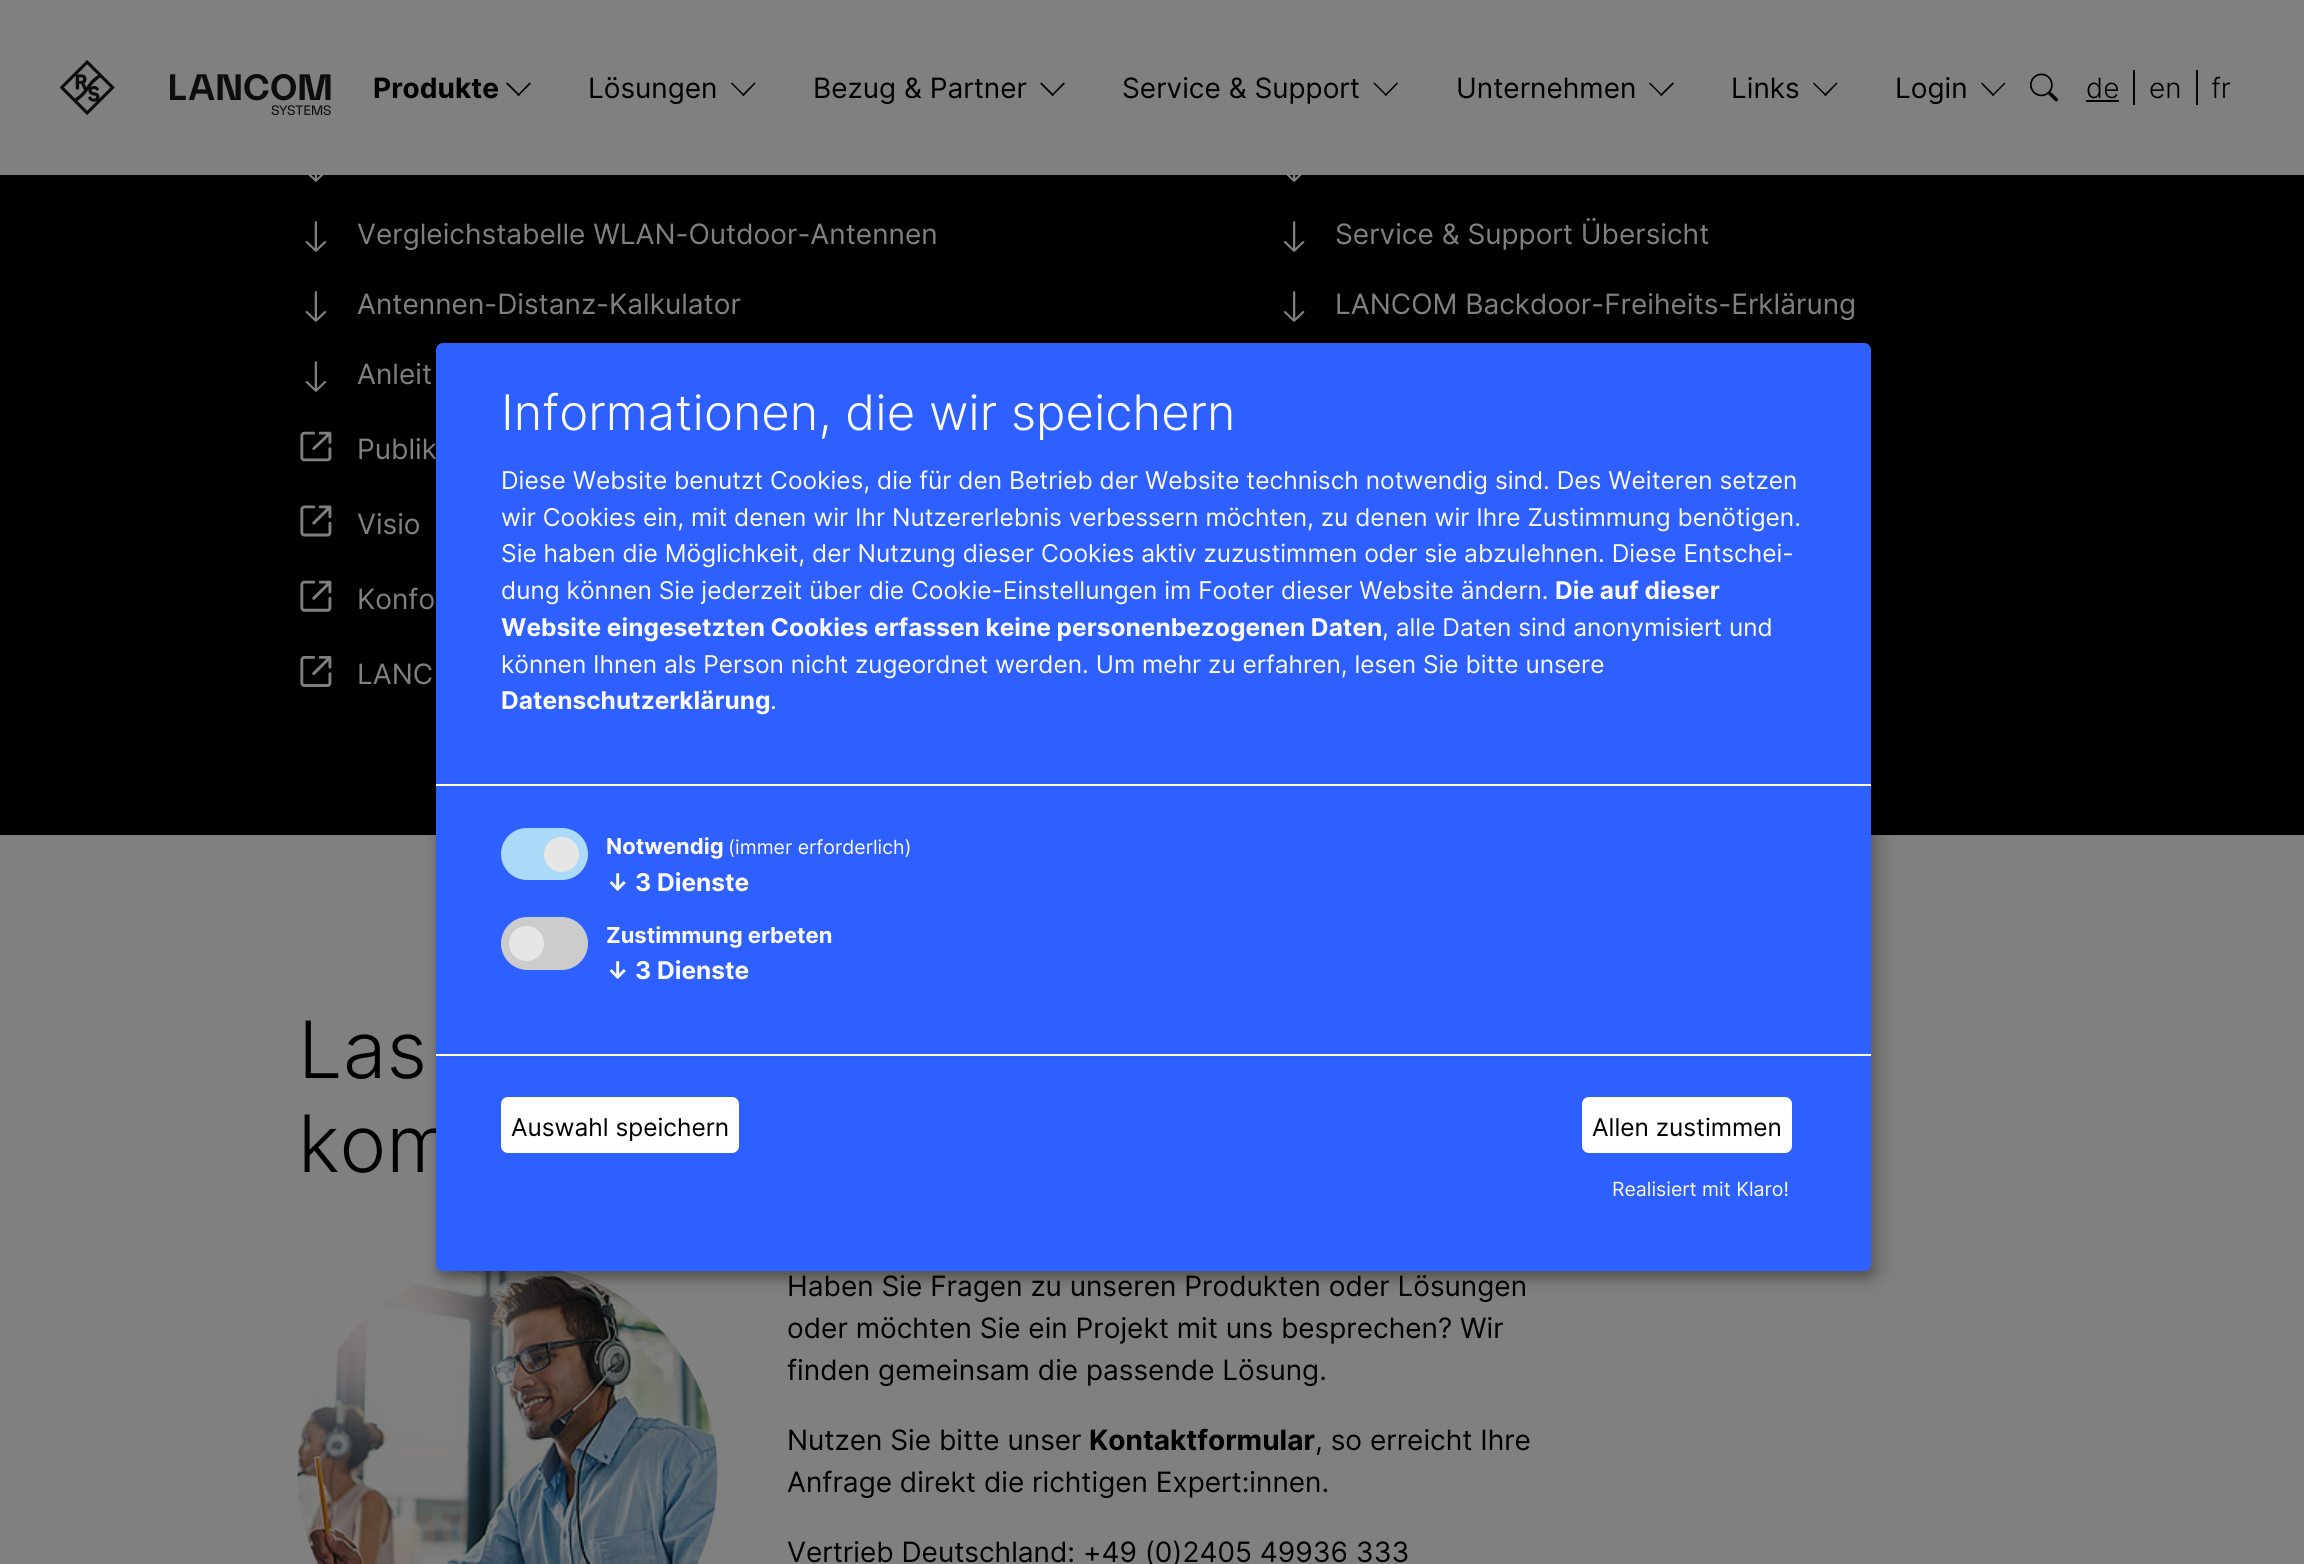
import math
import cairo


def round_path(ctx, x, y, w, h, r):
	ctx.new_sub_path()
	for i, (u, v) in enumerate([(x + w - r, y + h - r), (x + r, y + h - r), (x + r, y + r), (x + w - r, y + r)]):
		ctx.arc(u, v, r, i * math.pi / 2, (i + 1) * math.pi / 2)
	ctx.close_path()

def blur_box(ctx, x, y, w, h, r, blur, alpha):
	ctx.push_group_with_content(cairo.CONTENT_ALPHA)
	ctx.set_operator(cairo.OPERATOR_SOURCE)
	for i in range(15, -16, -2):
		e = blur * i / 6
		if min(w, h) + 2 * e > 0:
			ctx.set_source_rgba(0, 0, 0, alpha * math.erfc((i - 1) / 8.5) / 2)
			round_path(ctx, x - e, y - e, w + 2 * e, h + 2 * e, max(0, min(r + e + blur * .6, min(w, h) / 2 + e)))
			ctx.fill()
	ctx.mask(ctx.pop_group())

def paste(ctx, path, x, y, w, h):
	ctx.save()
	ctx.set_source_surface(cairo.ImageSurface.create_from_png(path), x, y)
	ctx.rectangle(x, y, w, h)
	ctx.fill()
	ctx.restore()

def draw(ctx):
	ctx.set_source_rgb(0.502, 0.502, 0.502)
	ctx.paint()
	paste(ctx, 'media/1.png', 60, 60, 271, 56)
	ctx.select_font_face('Inter', cairo.FONT_SLANT_NORMAL, cairo.FONT_WEIGHT_BOLD)
	ctx.set_font_size(28)
	ctx.set_source_rgb(0, 0, 0)
	ctx.move_to(373, 98)
	ctx.show_text('Produkte')
	ctx.new_path()
	ctx.move_to(529.5, 82.5)
	ctx.line_to(531, 83.5)
	ctx.line_to(518.5, 96)
	ctx.line_to(517.5, 95)
	ctx.close_path()
	ctx.fill()
	ctx.new_path()
	ctx.move_to(507.5, 82.5)
	ctx.line_to(520, 95)
	ctx.line_to(518.5, 96)
	ctx.line_to(506, 83.5)
	ctx.close_path()
	ctx.fill()
	ctx.select_font_face('Inter')
	ctx.move_to(588, 98)
	ctx.show_text('Lösungen')
	ctx.new_path()
	ctx.move_to(754.5, 82.5)
	ctx.line_to(755.5, 83.5)
	ctx.line_to(743.5, 96)
	ctx.line_to(742, 95)
	ctx.close_path()
	ctx.fill()
	ctx.new_path()
	ctx.move_to(732, 82.5)
	ctx.line_to(744.5, 95)
	ctx.line_to(743.5, 96)
	ctx.line_to(731, 83.5)
	ctx.close_path()
	ctx.fill()
	ctx.move_to(813, 98)
	ctx.show_text('Bezug & Partner')
	ctx.new_path()
	ctx.move_to(1063.5, 82.5)
	ctx.line_to(1065, 83.5)
	ctx.line_to(1052.5, 96)
	ctx.line_to(1051.5, 95)
	ctx.close_path()
	ctx.fill()
	ctx.new_path()
	ctx.move_to(1041.5, 82.5)
	ctx.line_to(1054, 95)
	ctx.line_to(1052.5, 96)
	ctx.line_to(1040, 83.5)
	ctx.close_path()
	ctx.fill()
	ctx.move_to(1122, 98)
	ctx.show_text('Service & Support')
	ctx.new_path()
	ctx.move_to(1397, 82.5)
	ctx.line_to(1398, 83.5)
	ctx.line_to(1386, 96)
	ctx.line_to(1384.5, 95)
	ctx.close_path()
	ctx.fill()
	ctx.new_path()
	ctx.move_to(1374.5, 82.5)
	ctx.line_to(1387, 95)
	ctx.line_to(1386, 96)
	ctx.line_to(1373.5, 83.5)
	ctx.close_path()
	ctx.fill()
	ctx.move_to(1456, 98)
	ctx.show_text('Unternehmen')
	ctx.new_path()
	ctx.move_to(1672.5, 82.5)
	ctx.line_to(1674, 83.5)
	ctx.line_to(1661.5, 96)
	ctx.line_to(1660, 95)
	ctx.close_path()
	ctx.fill()
	ctx.new_path()
	ctx.move_to(1650, 82.5)
	ctx.line_to(1662.5, 95)
	ctx.line_to(1661.5, 96)
	ctx.line_to(1649, 83.5)
	ctx.close_path()
	ctx.fill()
	ctx.move_to(1731, 98)
	ctx.show_text('Links')
	ctx.new_path()
	ctx.move_to(1836.5, 82.5)
	ctx.line_to(1837.5, 83.5)
	ctx.line_to(1825.5, 96)
	ctx.line_to(1824, 95)
	ctx.close_path()
	ctx.fill()
	ctx.new_path()
	ctx.move_to(1814, 82.5)
	ctx.line_to(1826.5, 95)
	ctx.line_to(1825.5, 96)
	ctx.line_to(1813, 83.5)
	ctx.close_path()
	ctx.fill()
	ctx.move_to(1895, 98)
	ctx.show_text('Login')
	ctx.new_path()
	ctx.move_to(2004.5, 82.5)
	ctx.line_to(2005.5, 83.5)
	ctx.line_to(1993, 96)
	ctx.line_to(1992, 95)
	ctx.close_path()
	ctx.fill()
	ctx.new_path()
	ctx.move_to(1982, 82.5)
	ctx.line_to(1994.5, 95)
	ctx.line_to(1993, 96)
	ctx.line_to(1981, 83.5)
	ctx.close_path()
	ctx.fill()
	paste(ctx, 'media/2.png', 2030, 73, 28, 29)
	ctx.select_font_face('Inter Light')
	ctx.move_to(2086, 98)
	ctx.show_text('de')
	ctx.rectangle(2086, 100, 33, 2)
	ctx.fill()
	ctx.move_to(2149, 98)
	ctx.show_text('en')
	ctx.rectangle(2133, 70, 2, 35)
	ctx.fill()
	ctx.move_to(2211, 98)
	ctx.show_text('fr')
	ctx.rectangle(2196, 70, 2, 35)
	ctx.fill()
	ctx.rectangle(0, 175, 2304, 660)
	ctx.fill()
	paste(ctx, 'media/3.png', 308, 175, 16, 7)
	paste(ctx, 'media/4.png', 305, 221, 22, 31)
	ctx.select_font_face('Inter')
	ctx.set_source_rgb(0.502, 0.502, 0.502)
	ctx.move_to(357, 244)
	ctx.show_text('Vergleichstabelle WLAN-Outdoor-Antennen')
	paste(ctx, 'media/4.png', 305, 291, 22, 31)
	ctx.move_to(357, 314)
	ctx.show_text('Antennen-Distanz-Kalkulator')
	paste(ctx, 'media/5.png', 305, 361, 22, 31)
	ctx.move_to(357, 384)
	ctx.show_text('Anleit')
	paste(ctx, 'media/6.png', 300, 431, 32, 31)
	ctx.move_to(357, 459)
	ctx.show_text('Publik')
	paste(ctx, 'media/7.png', 300, 505, 32, 32)
	ctx.move_to(357, 534)
	ctx.show_text('Visio')
	paste(ctx, 'media/8.png', 300, 580, 32, 32)
	ctx.move_to(357, 609)
	ctx.show_text('Konfo')
	paste(ctx, 'media/9.png', 300, 656, 32, 31)
	ctx.move_to(357, 684)
	ctx.show_text('LANC')
	paste(ctx, 'media/10.png', 1286, 175, 16, 7)
	paste(ctx, 'media/11.png', 1283, 221, 22, 31)
	ctx.move_to(1335, 244)
	ctx.show_text('Service & Support Übersicht')
	paste(ctx, 'media/11.png', 1283, 291, 22, 31)
	ctx.move_to(1335, 314)
	ctx.show_text('LANCOM Backdoor-Freiheits-Erklärung')
	ctx.select_font_face('Inter Light')
	ctx.set_font_size(79)
	ctx.set_source_rgb(0, 0, 0)
	ctx.move_to(298, 1078)
	ctx.show_text('Las')
	ctx.move_to(298, 1172)
	ctx.show_text('kom')
	paste(ctx, 'media/12.png', 297, 1271, 421, 293)
	ctx.select_font_face('Inter')
	ctx.set_font_size(28)
	for x, y, s in [
		(787, 1296, 'Haben Sie Fragen zu unseren Produkten oder Lösungen'),
		(787, 1338, 'oder möchten Sie ein Projekt mit uns besprechen? Wir'),
		(787, 1380, 'finden gemeinsam die passende Lösung.'),
		(787, 1450, 'Nutzen Sie bitte unser'),
	]:
		ctx.move_to(x, y)
		ctx.show_text(s)
	ctx.select_font_face('Inter', cairo.FONT_SLANT_NORMAL, cairo.FONT_WEIGHT_BOLD)
	ctx.move_to(1089, 1450)
	ctx.show_text('Kontaktformular')
	ctx.select_font_face('Inter')
	for x, y, s in [
		(1315, 1450, ', so erreicht Ihre'),
		(787, 1492, 'Anfrage direkt die richtigen Expert:innen.'),
		(787, 1562, 'Vertrieb Deutschland: +49 (0)2405 49936 333'),
	]:
		ctx.move_to(x, y)
		ctx.show_text(s)
	ctx.set_source_rgb(0, 0, 0)
	blur_box(ctx, 445, 352, 1435, 927, 7, 9, 0.19)
	blur_box(ctx, 436, 350, 1435, 928, 7, 5, 0.2)
	ctx.set_source_rgb(0.18, 0.376, 1)
	round_path(ctx, 436, 343, 1435, 928, 7)
	ctx.fill()
	ctx.set_source_rgb(1, 1, 1)
	ctx.rectangle(436, 784, 1435, 2)
	ctx.fill()
	ctx.select_font_face('Inter Light')
	ctx.set_font_size(49)
	ctx.set_source_rgb(0.98, 0.98, 0.98)
	ctx.move_to(501, 430)
	ctx.show_text('Informationen, die wir speichern')
	ctx.select_font_face('Inter')
	ctx.set_font_size(24.5)
	for x, y, s in [
		(501, 489, 'Diese Website benutzt Cookies, die für den Betrieb der Website technisch notwendig sind. Des Weiteren setzen'),
		(501, 526, 'wir Cookies ein, mit denen wir Ihr Nutzererlebnis verbessern möchten, zu denen wir Ihre Zustimmung benötigen.'),
		(501, 562, 'Sie haben die Möglichkeit, der Nutzung dieser Cookies aktiv zuzustimmen oder sie abzulehnen. Diese Entschei-'),
		(501, 599, 'dung können Sie jederzeit über die Cookie-Einstellungen im Footer dieser Website ändern.'),
	]:
		ctx.move_to(x, y)
		ctx.show_text(s)
	ctx.select_font_face('Inter', cairo.FONT_SLANT_NORMAL, cairo.FONT_WEIGHT_BOLD)
	ctx.move_to(1555, 599)
	ctx.show_text('Die auf dieser')
	ctx.move_to(501, 636)
	ctx.show_text('Website eingesetzten Cookies erfassen keine personenbezogenen Daten')
	ctx.select_font_face('Inter')
	ctx.move_to(1382, 636)
	ctx.show_text(', alle Daten sind anonymisiert und')
	ctx.move_to(501, 673)
	ctx.show_text('können Ihnen als Person nicht zugeordnet werden. Um mehr zu erfahren, lesen Sie bitte unsere')
	ctx.select_font_face('Inter', cairo.FONT_SLANT_NORMAL, cairo.FONT_WEIGHT_BOLD)
	ctx.move_to(501, 709)
	ctx.show_text('Datenschutzerklärung')
	ctx.select_font_face('Inter')
	ctx.move_to(770, 709)
	ctx.show_text('.')
	ctx.set_source_rgb(0.667, 0.855, 0.969)
	round_path(ctx, 501, 828, 87, 52, 26)
	ctx.fill()
	ctx.set_source_rgb(0.902, 0.902, 0.902)
	ctx.arc(561.5, 854.5, 17.5, 0, 2 * math.pi)
	ctx.fill()
	ctx.select_font_face('Inter', cairo.FONT_SLANT_NORMAL, cairo.FONT_WEIGHT_BOLD)
	ctx.set_font_size(22)
	ctx.set_source_rgb(0.98, 0.98, 0.98)
	ctx.move_to(606, 854)
	ctx.show_text('Notwendig')
	ctx.select_font_face('Inter')
	ctx.set_font_size(19.5)
	ctx.move_to(728, 854)
	ctx.show_text('(immer erforderlich)')
	ctx.select_font_face('Inter', cairo.FONT_SLANT_NORMAL, cairo.FONT_WEIGHT_BOLD)
	ctx.set_font_size(24.5)
	ctx.move_to(606, 891)
	ctx.show_text('↓ 3 Dienste')
	ctx.set_source_rgb(0.8, 0.8, 0.8)
	round_path(ctx, 501, 917, 87, 53, 26.5)
	ctx.fill()
	ctx.set_source_rgb(0.902, 0.902, 0.902)
	ctx.arc(526.5, 943.5, 17.5, 0, 2 * math.pi)
	ctx.fill()
	ctx.set_font_size(22)
	ctx.set_source_rgb(0.98, 0.98, 0.98)
	ctx.move_to(606, 943)
	ctx.show_text('Zustimmung erbeten')
	ctx.set_font_size(24.5)
	ctx.move_to(606, 979)
	ctx.show_text('↓ 3 Dienste')
	ctx.set_source_rgb(1, 1, 1)
	ctx.rectangle(436, 1054, 1435, 2)
	ctx.fill()
	round_path(ctx, 501, 1097, 238, 56, 7)
	ctx.fill()
	ctx.select_font_face('Inter')
	ctx.set_source_rgb(0, 0, 0)
	ctx.move_to(511, 1136)
	ctx.show_text('Auswahl speichern')
	ctx.set_source_rgb(1, 1, 1)
	round_path(ctx, 1582, 1097, 210, 56, 7)
	ctx.fill()
	ctx.set_source_rgb(0, 0, 0)
	ctx.move_to(1592, 1136)
	ctx.show_text('Allen zustimmen')
	ctx.set_font_size(19.5)
	ctx.set_source_rgb(0.98, 0.98, 0.98)
	ctx.move_to(1612, 1196)
	ctx.show_text('Realisiert mit Klaro!')


surface = cairo.ImageSurface(cairo.FORMAT_RGB24, 2304, 1564)
ctx = cairo.Context(surface)
options = cairo.FontOptions()
options.set_hint_metrics(cairo.HINT_METRICS_OFF)
options.set_hint_style(cairo.HINT_STYLE_NONE)
ctx.set_font_options(options)
ctx.set_miter_limit(4)
draw(ctx)
surface.write_to_png('image.png')
